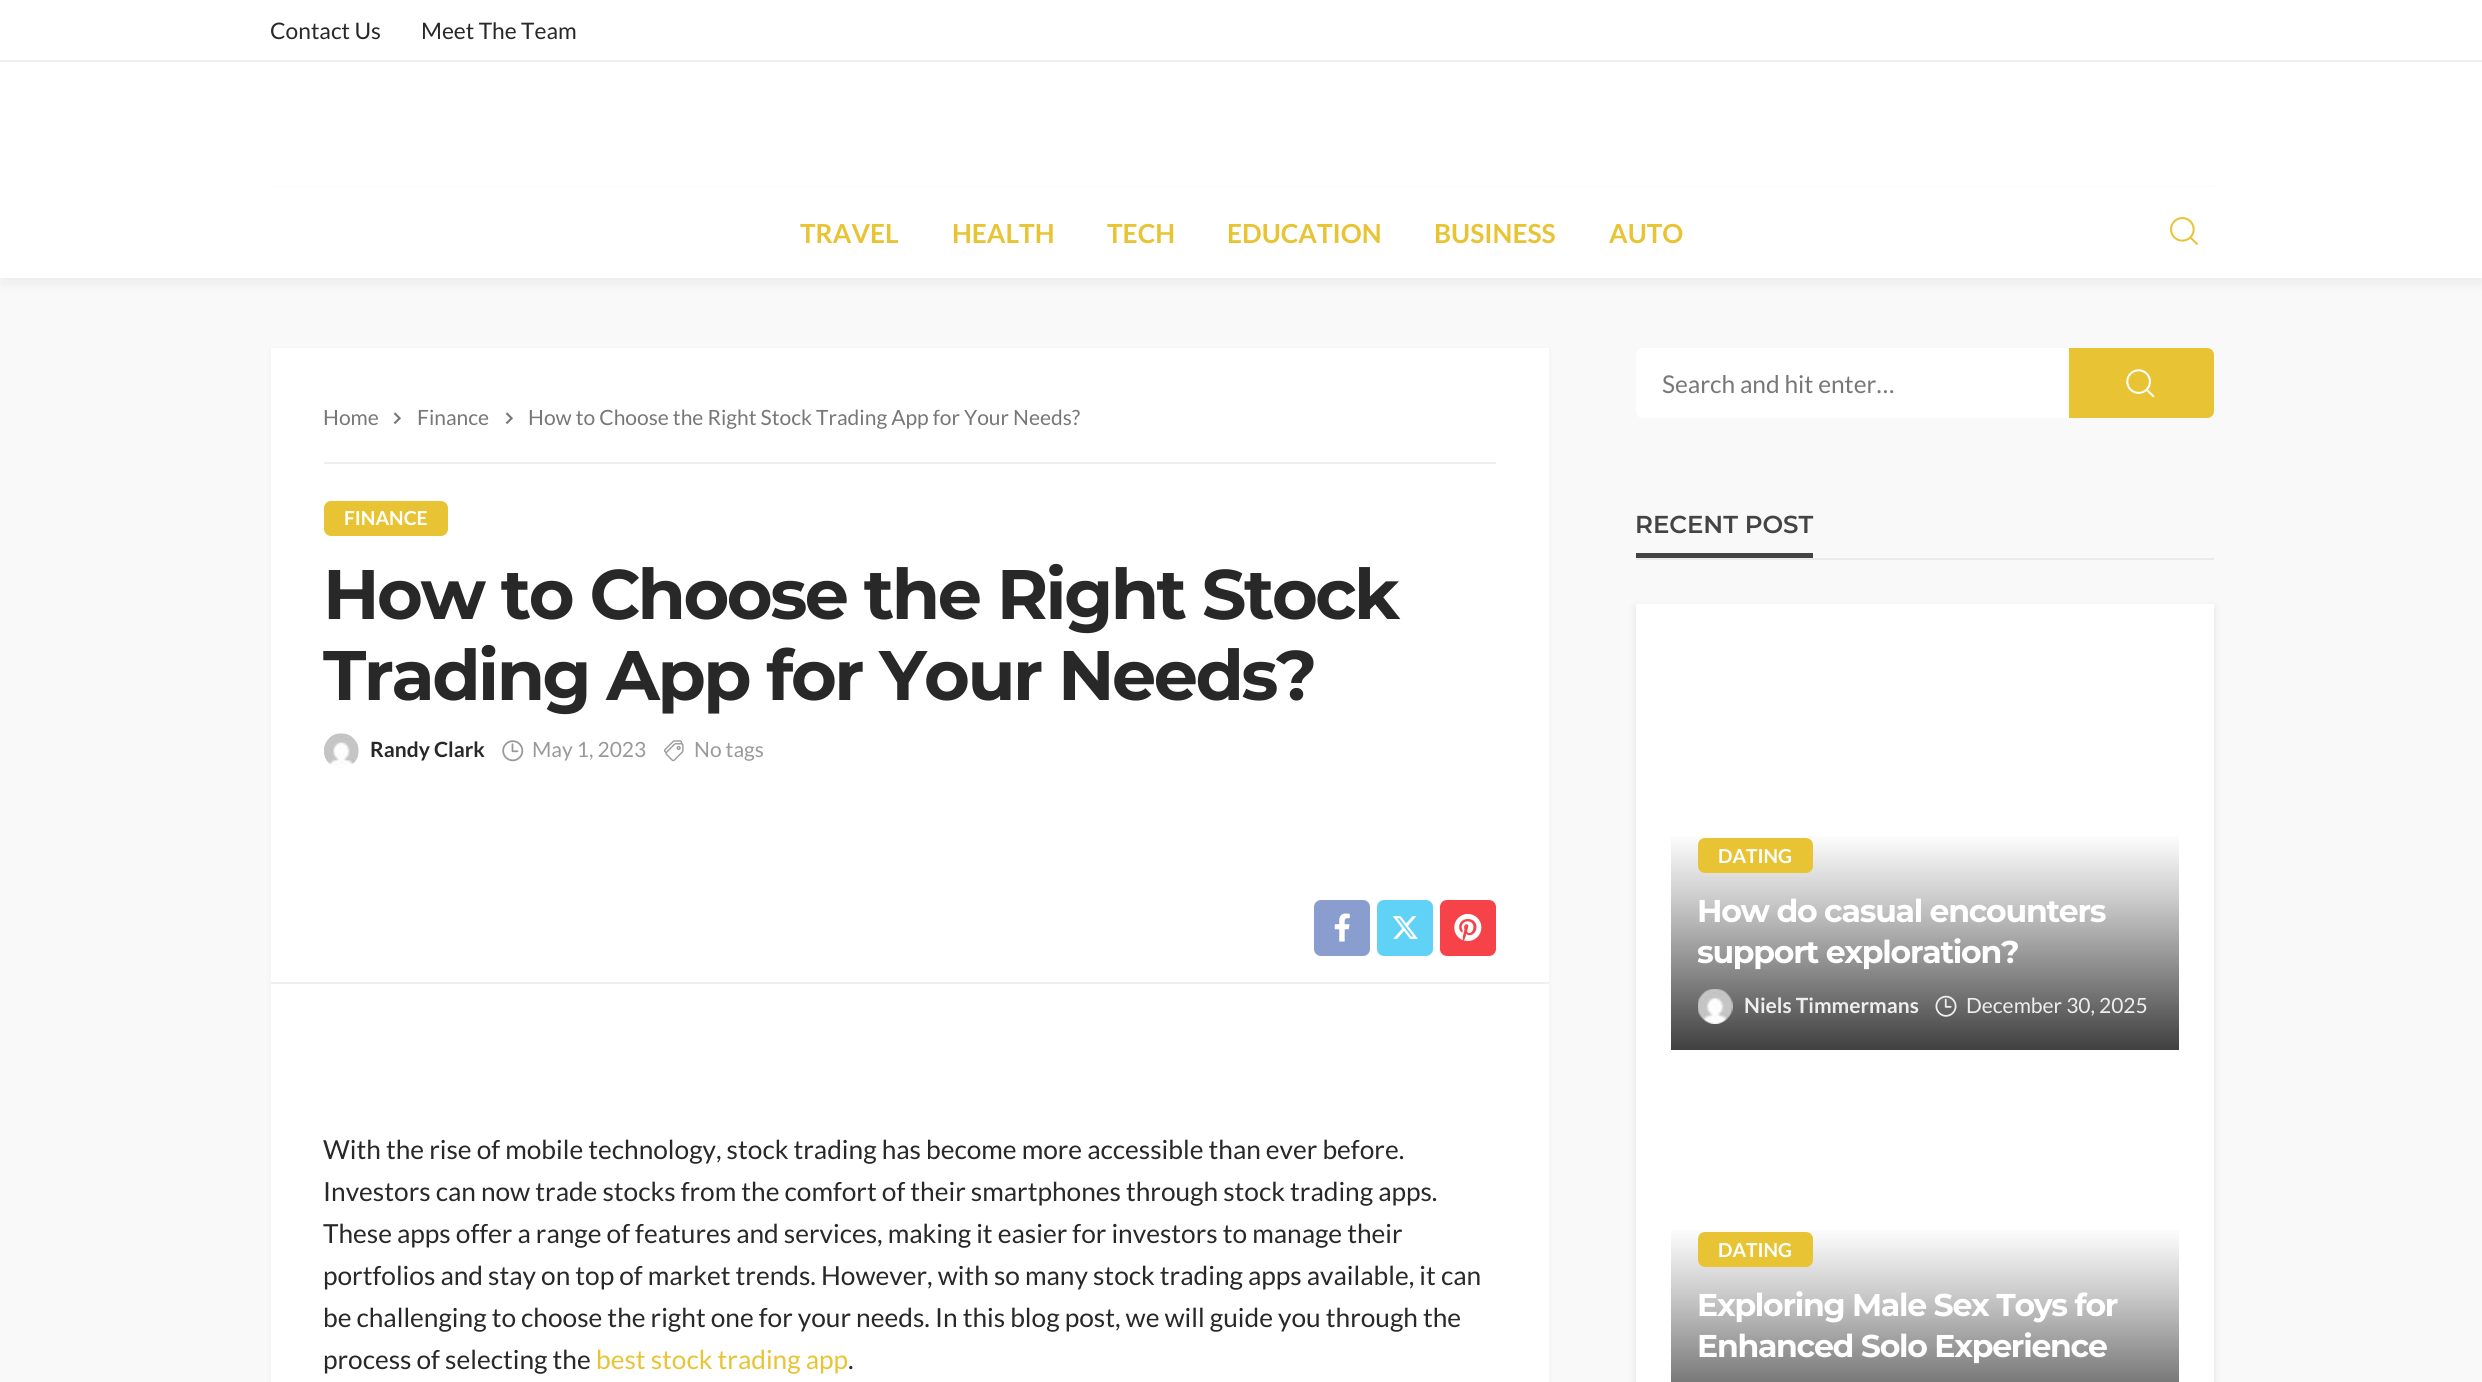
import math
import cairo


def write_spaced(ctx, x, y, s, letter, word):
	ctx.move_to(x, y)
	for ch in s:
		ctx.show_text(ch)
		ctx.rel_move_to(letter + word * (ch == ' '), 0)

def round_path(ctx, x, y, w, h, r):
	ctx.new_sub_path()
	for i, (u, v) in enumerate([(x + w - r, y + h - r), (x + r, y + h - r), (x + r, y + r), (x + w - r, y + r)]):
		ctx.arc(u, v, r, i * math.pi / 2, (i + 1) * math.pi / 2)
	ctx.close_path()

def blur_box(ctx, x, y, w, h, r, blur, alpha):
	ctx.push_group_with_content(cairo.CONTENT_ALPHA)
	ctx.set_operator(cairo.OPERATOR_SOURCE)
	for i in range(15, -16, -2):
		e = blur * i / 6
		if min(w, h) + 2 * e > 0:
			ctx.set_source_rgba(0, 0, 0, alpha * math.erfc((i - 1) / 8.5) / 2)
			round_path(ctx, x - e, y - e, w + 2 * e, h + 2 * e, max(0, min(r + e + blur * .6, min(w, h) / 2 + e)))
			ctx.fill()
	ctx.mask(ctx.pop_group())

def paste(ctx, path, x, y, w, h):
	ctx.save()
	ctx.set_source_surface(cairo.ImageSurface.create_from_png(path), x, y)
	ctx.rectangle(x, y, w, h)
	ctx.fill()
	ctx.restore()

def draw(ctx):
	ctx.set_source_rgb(0.976, 0.976, 0.976)
	ctx.paint()
	ctx.set_source_rgb(1, 1, 1)
	ctx.rectangle(0, 0, 2482, 60)
	ctx.fill()
	ctx.set_source_rgb(0.937, 0.937, 0.937)
	ctx.rectangle(0, 60, 2482, 2)
	ctx.fill()
	ctx.select_font_face('Lato')
	ctx.set_font_size(22.75)
	ctx.set_source_rgb(0.157, 0.157, 0.157)
	ctx.move_to(270, 39)
	ctx.show_text('Contact Us')
	ctx.move_to(421, 39)
	ctx.show_text('Meet The Team')
	ctx.set_source_rgb(1, 1, 1)
	ctx.rectangle(0, 62, 2482, 125)
	ctx.fill()
	ctx.set_source_rgb(0.98, 0.98, 0.98)
	ctx.rectangle(271, 186, 1943, 1)
	ctx.fill()
	ctx.set_source_rgb(0.11, 0.11, 0.11)
	blur_box(ctx, 0, 194, 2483, 91, 0, 5, 0.05)
	ctx.set_source_rgb(1, 1, 1)
	ctx.rectangle(0, 187, 2482, 91)
	ctx.fill()
	ctx.select_font_face('Lato', cairo.FONT_SLANT_NORMAL, cairo.FONT_WEIGHT_BOLD)
	ctx.set_font_size(26.25)
	ctx.set_source_rgb(0.91, 0.769, 0.208)
	for x, y, s in [
		(800, 243, 'TRAVEL'),
		(952, 243, 'HEALTH'),
		(1107, 243, 'TECH'),
		(1227, 243, 'EDUCATION'),
		(1434, 243, 'BUSINESS'),
		(1609, 243, 'AUTO'),
	]:
		ctx.move_to(x, y)
		ctx.show_text(s)
	paste(ctx, 'media/1.png', 2170, 217, 28, 28)
	ctx.set_source_rgb(0.11, 0.11, 0.11)
	blur_box(ctx, 271, 350, 1278, 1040, 0, 2.5, 0.05)
	ctx.set_source_rgb(1, 1, 1)
	ctx.rectangle(271, 348, 1278, 1034)
	ctx.fill()
	ctx.set_source_rgb(0.937, 0.937, 0.937)
	ctx.rectangle(324, 462, 1172, 2)
	ctx.fill()
	ctx.select_font_face('Lato')
	ctx.set_font_size(21)
	ctx.set_source_rgb(0.467, 0.467, 0.467)
	ctx.move_to(323, 425)
	ctx.show_text('Home')
	paste(ctx, 'media/2.png', 393, 412, 8, 13)
	ctx.move_to(417, 425)
	ctx.show_text('Finance')
	paste(ctx, 'media/2.png', 505, 412, 8, 13)
	ctx.move_to(528, 425)
	ctx.show_text('How to Choose the Right Stock Trading App for Your Needs?')
	ctx.set_source_rgb(0.91, 0.769, 0.208)
	round_path(ctx, 324, 501, 124, 35, 7)
	ctx.fill()
	ctx.select_font_face('Lato', cairo.FONT_SLANT_NORMAL, cairo.FONT_WEIGHT_BOLD)
	ctx.set_font_size(19.25)
	ctx.set_source_rgb(1, 1, 1)
	ctx.move_to(344, 525)
	ctx.show_text('FINANCE')
	ctx.select_font_face('Montserrat', cairo.FONT_SLANT_NORMAL, cairo.FONT_WEIGHT_BOLD)
	ctx.set_font_size(70)
	ctx.set_source_rgb(0.157, 0.157, 0.157)
	write_spaced(ctx, 323, 619, 'How to Choose the Right Stock', -2.5, 0)
	write_spaced(ctx, 323, 700, 'Trading App for Your Needs?', -2.5, 0)
	paste(ctx, 'media/3.png', 324, 733, 35, 35)
	ctx.select_font_face('Lato', cairo.FONT_SLANT_NORMAL, cairo.FONT_WEIGHT_BOLD)
	ctx.set_font_size(21)
	ctx.move_to(370, 757)
	ctx.show_text('Randy Clark')
	paste(ctx, 'media/4.png', 502, 740, 22, 22)
	ctx.select_font_face('Lato')
	ctx.set_source_rgb(0.6, 0.6, 0.6)
	ctx.move_to(532, 757)
	ctx.show_text('May 1, 2023')
	paste(ctx, 'media/5.png', 664, 740, 20, 22)
	ctx.move_to(694, 757)
	ctx.show_text('No tags')
	ctx.set_source_rgb(0.937, 0.937, 0.937)
	ctx.rectangle(271, 982, 1278, 2)
	ctx.fill()
	ctx.set_source_rgb(0.537, 0.616, 0.808)
	round_path(ctx, 1314, 900, 56, 56, 7)
	ctx.fill()
	paste(ctx, 'media/6.png', 1334, 913, 16, 29)
	ctx.set_source_rgb(0.376, 0.824, 0.961)
	round_path(ctx, 1377, 900, 56, 56, 7)
	ctx.fill()
	paste(ctx, 'media/7.png', 1392, 916, 26, 23)
	ctx.set_source_rgb(0.969, 0.259, 0.286)
	round_path(ctx, 1440, 900, 56, 56, 7)
	ctx.fill()
	paste(ctx, 'media/8.png', 1454, 913, 28, 29)
	ctx.set_font_size(26.25)
	ctx.set_source_rgb(0.157, 0.157, 0.157)
	for x, y, s in [
		(323, 1159, 'With the rise of mobile technology, stock trading has become more accessible than ever before.'),
		(323, 1201, 'Investors can now trade stocks from the comfort of their smartphones through stock trading apps.'),
		(323, 1243, 'These apps offer a range of features and services, making it easier for investors to manage their'),
		(323, 1285, 'portfolios and stay on top of market trends. However, with so many stock trading apps available, it can'),
		(323, 1327, 'be challenging to choose the right one for your needs. In this blog post, we will guide you through the'),
		(323, 1369, 'process of selecting the'),
	]:
		ctx.move_to(x, y)
		ctx.show_text(s)
	ctx.set_source_rgb(0.91, 0.769, 0.208)
	ctx.move_to(596, 1369)
	ctx.show_text('best stock trading app')
	ctx.set_source_rgb(0.157, 0.157, 0.157)
	ctx.move_to(848, 1369)
	ctx.show_text('.')
	ctx.set_source_rgb(1, 1, 1)
	ctx.new_path()
	ctx.move_to(1643, 348)
	ctx.line_to(2069, 348)
	ctx.line_to(2069, 418)
	ctx.line_to(1643, 418)
	ctx.curve_to(1639, 418, 1636, 415, 1636, 411)
	ctx.line_to(1636, 355)
	ctx.curve_to(1636, 351, 1639, 348, 1643, 348)
	ctx.close_path()
	ctx.fill()
	ctx.set_font_size(24.5)
	ctx.set_source_rgb(0.467, 0.467, 0.467)
	ctx.move_to(1662, 393)
	ctx.show_text('Search and hit enter…')
	ctx.set_source_rgb(0.91, 0.769, 0.208)
	ctx.new_path()
	ctx.move_to(2069, 348)
	ctx.line_to(2207, 348)
	ctx.curve_to(2211, 348, 2214, 351, 2214, 355)
	ctx.line_to(2214, 411)
	ctx.curve_to(2214, 415, 2211, 418, 2207, 418)
	ctx.line_to(2069, 418)
	ctx.close_path()
	ctx.fill()
	paste(ctx, 'media/9.png', 2126, 369, 29, 29)
	ctx.set_source_rgb(0.918, 0.918, 0.918)
	ctx.rectangle(1636, 558, 578, 2)
	ctx.fill()
	ctx.set_source_rgb(0.267, 0.267, 0.267)
	ctx.rectangle(1636, 553, 177, 5)
	ctx.fill()
	ctx.select_font_face('Montserrat SemiBold')
	ctx.move_to(1635, 533)
	ctx.show_text('RECENT POST')
	ctx.set_source_rgb(0.11, 0.11, 0.11)
	blur_box(ctx, 1636, 607, 578, 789, 0, 4.5, 0.1)
	ctx.set_source_rgb(1, 1, 1)
	ctx.rectangle(1636, 604, 578, 778)
	ctx.fill()
	gradient = cairo.LinearGradient(1925, 833, 1925, 1050)
	gradient.add_color_stop_rgba(0, 1, 1, 1, 1)
	gradient.add_color_stop_rgba(0.3, 0.8, 0.8, 0.8, 1)
	gradient.add_color_stop_rgba(1, 0.251, 0.251, 0.251, 1)
	ctx.set_source(gradient)
	ctx.rectangle(1671, 836, 508, 214)
	ctx.fill()
	ctx.set_source_rgb(0.91, 0.769, 0.208)
	round_path(ctx, 1698, 838, 115, 35, 7)
	ctx.fill()
	ctx.select_font_face('Lato', cairo.FONT_SLANT_NORMAL, cairo.FONT_WEIGHT_BOLD)
	ctx.set_font_size(19.25)
	ctx.set_source_rgb(1, 1, 1)
	ctx.move_to(1718, 863)
	ctx.show_text('DATING')
	ctx.select_font_face('Montserrat', cairo.FONT_SLANT_NORMAL, cairo.FONT_WEIGHT_BOLD)
	ctx.set_font_size(31.5)
	write_spaced(ctx, 1697, 922, 'How do casual encounters', -1.25, 0)
	write_spaced(ctx, 1697, 963, 'support exploration?', -1.25, 0)
	paste(ctx, 'media/10.png', 1698, 989, 35, 35)
	ctx.select_font_face('Lato', cairo.FONT_SLANT_NORMAL, cairo.FONT_WEIGHT_BOLD)
	ctx.set_font_size(21)
	ctx.set_source_rgb(0.933, 0.933, 0.933)
	ctx.move_to(1744, 1013)
	ctx.show_text('Niels Timmermans')
	paste(ctx, 'media/11.png', 1935, 995, 22, 22)
	ctx.select_font_face('Lato')
	ctx.move_to(1966, 1013)
	ctx.show_text('December 30, 2025')
	gradient = cairo.LinearGradient(1925, 1227, 1925, 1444)
	gradient.add_color_stop_rgba(0, 1, 1, 1, 1)
	gradient.add_color_stop_rgba(0.3, 0.8, 0.8, 0.8, 1)
	gradient.add_color_stop_rgba(1, 0.251, 0.251, 0.251, 1)
	ctx.set_source(gradient)
	ctx.rectangle(1671, 1230, 508, 152)
	ctx.fill()
	ctx.set_source_rgb(0.91, 0.769, 0.208)
	round_path(ctx, 1698, 1232, 115, 35, 7)
	ctx.fill()
	ctx.select_font_face('Lato', cairo.FONT_SLANT_NORMAL, cairo.FONT_WEIGHT_BOLD)
	ctx.set_font_size(19.25)
	ctx.set_source_rgb(1, 1, 1)
	ctx.move_to(1718, 1257)
	ctx.show_text('DATING')
	ctx.select_font_face('Montserrat', cairo.FONT_SLANT_NORMAL, cairo.FONT_WEIGHT_BOLD)
	ctx.set_font_size(31.5)
	write_spaced(ctx, 1697, 1316, 'Exploring Male Sex Toys for', -1.25, 0)
	write_spaced(ctx, 1697, 1357, 'Enhanced Solo Experience', -1.25, 0)


surface = cairo.ImageSurface(cairo.FORMAT_RGB24, 2482, 1382)
ctx = cairo.Context(surface)
options = cairo.FontOptions()
options.set_hint_metrics(cairo.HINT_METRICS_OFF)
options.set_hint_style(cairo.HINT_STYLE_NONE)
ctx.set_font_options(options)
ctx.set_miter_limit(4)
draw(ctx)
surface.write_to_png('image.png')
